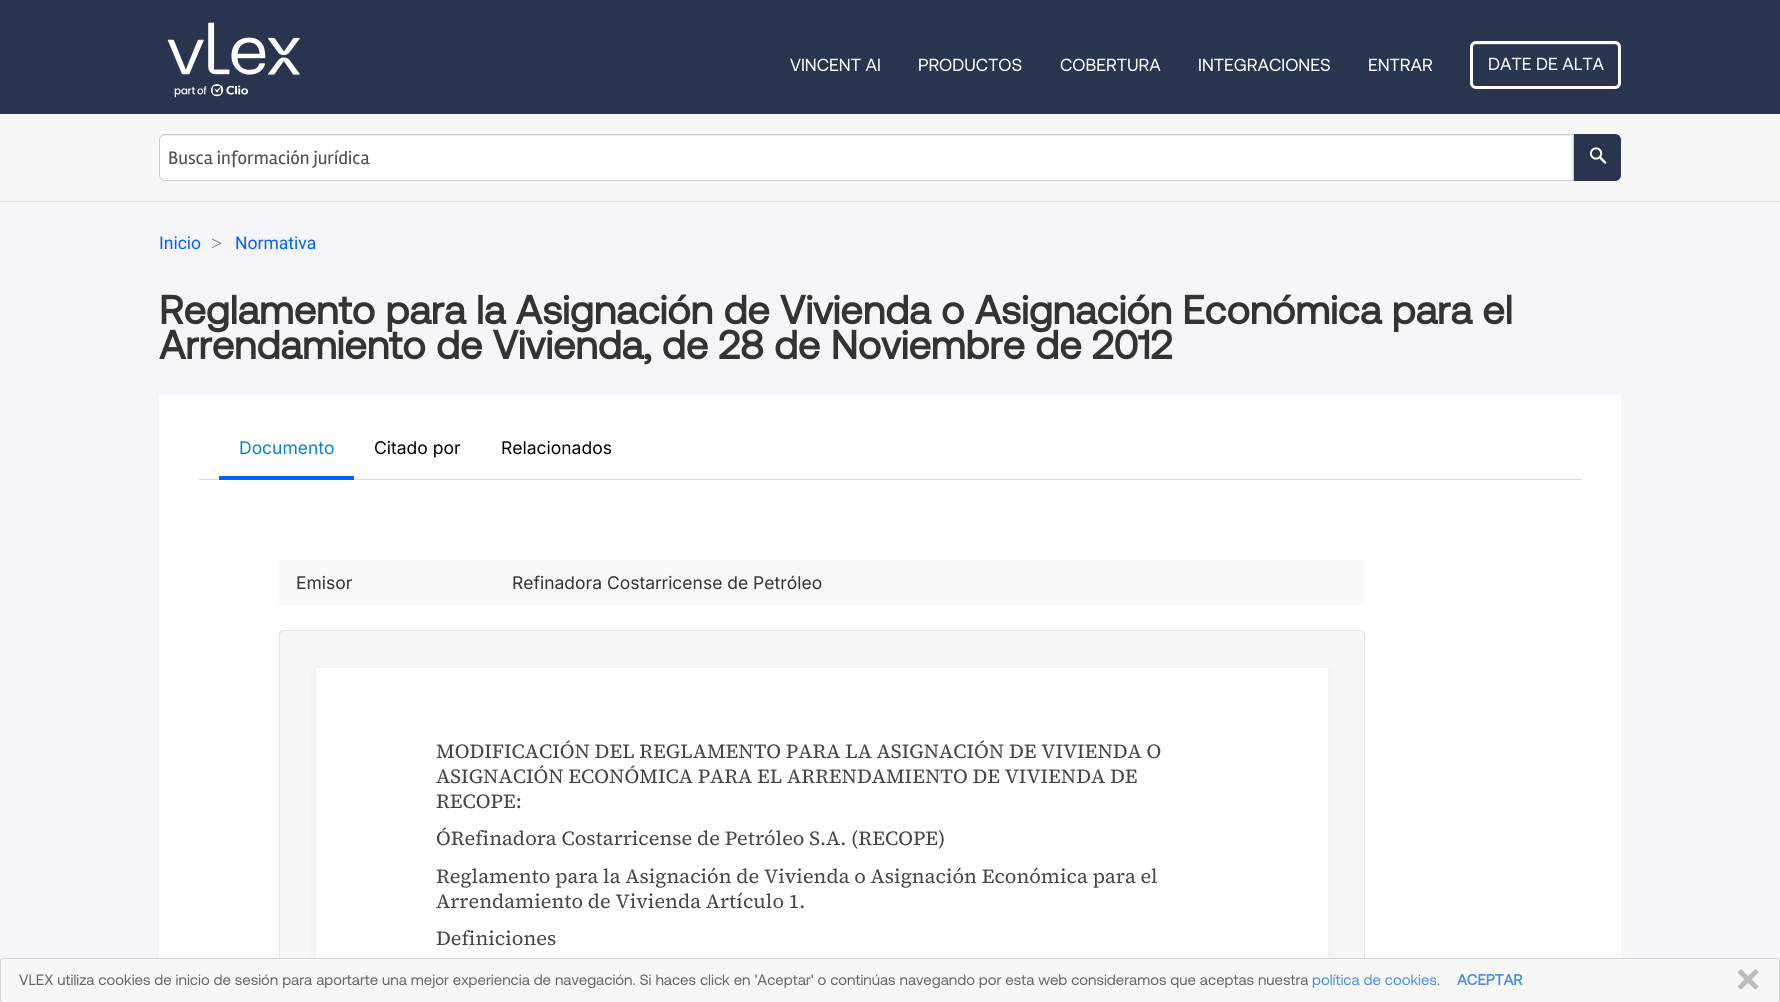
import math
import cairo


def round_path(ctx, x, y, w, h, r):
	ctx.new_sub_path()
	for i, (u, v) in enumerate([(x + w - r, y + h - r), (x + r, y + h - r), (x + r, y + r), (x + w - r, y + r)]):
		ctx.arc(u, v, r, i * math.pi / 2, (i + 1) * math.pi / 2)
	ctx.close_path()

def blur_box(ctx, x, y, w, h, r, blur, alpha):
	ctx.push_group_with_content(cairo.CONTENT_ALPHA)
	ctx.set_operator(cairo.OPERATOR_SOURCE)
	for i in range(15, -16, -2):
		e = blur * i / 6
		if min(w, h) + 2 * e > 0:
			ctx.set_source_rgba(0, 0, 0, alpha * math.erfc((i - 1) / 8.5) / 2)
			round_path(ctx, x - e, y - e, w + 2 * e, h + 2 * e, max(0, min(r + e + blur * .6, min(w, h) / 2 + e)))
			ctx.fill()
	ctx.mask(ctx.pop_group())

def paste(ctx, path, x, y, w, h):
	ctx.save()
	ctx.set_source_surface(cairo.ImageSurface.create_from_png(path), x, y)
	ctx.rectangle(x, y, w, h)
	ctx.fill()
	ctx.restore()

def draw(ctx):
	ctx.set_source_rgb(0.961, 0.961, 0.969)
	ctx.paint()
	ctx.set_source_rgb(0.161, 0.208, 0.306)
	ctx.rectangle(0, 0, 1780, 114)
	ctx.fill()
	paste(ctx, 'media/1.png', 167, 22, 133, 76)
	ctx.select_font_face('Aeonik')
	ctx.set_font_size(17.5)
	ctx.set_source_rgb(1, 1, 1)
	for x, y, s in [
		(790, 71, 'VINCENT AI'),
		(918, 71, 'PRODUCTOS'),
		(1060, 71, 'COBERTURA'),
		(1198, 71, 'INTEGRACIONES'),
		(1368, 71, 'ENTRAR'),
	]:
		ctx.move_to(x, y)
		ctx.show_text(s)
	ctx.set_source_rgb(0.329, 0.365, 0.443)
	ctx.new_path()
	ctx.move_to(1476, 45)
	ctx.line_to(1615, 45)
	ctx.curve_to(1617, 45, 1619, 47, 1619, 49)
	ctx.line_to(1619, 48)
	ctx.curve_to(1619, 46, 1617, 44, 1615, 44)
	ctx.line_to(1477, 44)
	ctx.curve_to(1476, 44, 1474, 45, 1474, 46)
	ctx.close_path()
	ctx.fill()
	round_path(ctx, 1471.5, 42.5, 148, 45, 4.5)
	ctx.set_source_rgb(1, 1, 1)
	ctx.set_line_width(3)
	ctx.stroke()
	ctx.move_to(1488, 70)
	ctx.show_text('DATE DE ALTA')
	ctx.set_source_rgb(0.976, 0.969, 0.969)
	ctx.rectangle(0, 114, 1780, 89)
	ctx.fill()
	ctx.set_source_rgb(0.882, 0.882, 0.882)
	ctx.rectangle(0, 201, 1780, 1)
	ctx.fill()
	ctx.set_source_rgb(1, 1, 1)
	ctx.new_path()
	ctx.move_to(165, 134)
	ctx.line_to(1574, 134)
	ctx.line_to(1574, 181)
	ctx.line_to(165, 181)
	ctx.curve_to(161.5, 181, 159, 178.5, 159, 175)
	ctx.line_to(159, 140)
	ctx.curve_to(159, 136.5, 161.5, 134, 165, 134)
	ctx.close_path()
	ctx.fill()
	ctx.set_source_rgb(0.925, 0.925, 0.925)
	ctx.new_path()
	ctx.move_to(165, 136)
	ctx.line_to(1572, 136)
	ctx.line_to(1572, 180)
	ctx.line_to(1573, 180)
	ctx.line_to(1573, 135)
	ctx.line_to(165, 135)
	ctx.curve_to(162, 135, 160, 138, 160, 141)
	ctx.curve_to(160, 138, 162, 136, 165, 136)
	ctx.close_path()
	ctx.fill()
	ctx.new_path()
	ctx.move_to(165, 134.5)
	ctx.line_to(1573.5, 134.5)
	ctx.line_to(1573.5, 180.5)
	ctx.line_to(165, 180.5)
	ctx.curve_to(162, 180.5, 159.5, 178, 159.5, 175)
	ctx.line_to(159.5, 140)
	ctx.curve_to(159.5, 137, 162, 134.5, 165, 134.5)
	ctx.close_path()
	ctx.set_source_rgb(0.8, 0.8, 0.8)
	ctx.set_line_width(1)
	ctx.stroke()
	ctx.select_font_face('Rambla')
	ctx.set_font_size(18.75)
	ctx.set_source_rgb(0.314, 0.314, 0.314)
	ctx.move_to(168, 164)
	ctx.show_text('Busca información jurídica')
	ctx.set_source_rgb(0.161, 0.208, 0.306)
	ctx.new_path()
	ctx.move_to(1574, 134)
	ctx.line_to(1615, 134)
	ctx.curve_to(1618.5, 134, 1621, 136.5, 1621, 140)
	ctx.line_to(1621, 175)
	ctx.curve_to(1621, 178.5, 1618.5, 181, 1615, 181)
	ctx.line_to(1574, 181)
	ctx.close_path()
	ctx.fill()
	paste(ctx, 'media/2.png', 1589, 147, 18, 17)
	ctx.select_font_face('Roboto')
	ctx.set_font_size(17.5)
	ctx.set_source_rgb(0.004, 0.38, 1)
	ctx.move_to(159, 249)
	ctx.show_text('Inicio')
	ctx.select_font_face('Liberation Serif')
	ctx.set_font_size(20)
	ctx.set_source_rgb(0.443, 0.443, 0.478)
	ctx.move_to(211, 250)
	ctx.show_text('>')
	ctx.select_font_face('Roboto')
	ctx.set_font_size(17.5)
	ctx.set_source_rgb(0.004, 0.38, 1)
	ctx.move_to(235, 249)
	ctx.show_text('Normativa')
	ctx.select_font_face('Aeonik', cairo.FONT_SLANT_NORMAL, cairo.FONT_WEIGHT_BOLD)
	ctx.set_font_size(40)
	ctx.set_source_rgb(0.2, 0.2, 0.2)
	ctx.move_to(159, 324)
	ctx.show_text('Reglamento para la Asignación de Vivienda o Asignación Económica para el')
	ctx.move_to(159, 359)
	ctx.show_text('Arrendamiento de Vivienda, de 28 de Noviembre de 2012')
	ctx.set_source_rgb(1, 1, 1)
	ctx.rectangle(159, 395, 1462, 563)
	ctx.fill()
	ctx.set_source_rgb(0.867, 0.867, 0.867)
	ctx.rectangle(199, 479, 1382, 1)
	ctx.fill()
	ctx.select_font_face('Inter')
	ctx.set_font_size(17.5)
	ctx.set_source_rgb(0.031, 0.51, 0.812)
	ctx.move_to(239, 454)
	ctx.show_text('Documento')
	ctx.set_source_rgb(0.004, 0.38, 1)
	ctx.rectangle(219, 476, 135, 4)
	ctx.fill()
	ctx.set_source_rgb(0, 0, 0)
	ctx.move_to(374, 454)
	ctx.show_text('Citado por')
	ctx.move_to(501, 454)
	ctx.show_text('Relacionados')
	ctx.set_source_rgb(0.976, 0.976, 0.976)
	ctx.rectangle(279, 560, 1086, 45)
	ctx.fill()
	ctx.set_source_rgb(0.2, 0.2, 0.2)
	ctx.move_to(296, 589)
	ctx.show_text('Emisor')
	ctx.move_to(512, 589)
	ctx.show_text('Refinadora Costarricense de Petróleo')
	ctx.set_source_rgb(0.976, 0.969, 0.969)
	ctx.new_path()
	ctx.move_to(284, 630)
	ctx.line_to(1360, 630)
	ctx.curve_to(1363, 630, 1365, 632, 1365, 635)
	ctx.line_to(1365, 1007)
	ctx.line_to(279, 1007)
	ctx.line_to(279, 635)
	ctx.curve_to(279, 632, 281, 630, 284, 630)
	ctx.close_path()
	ctx.fill()
	ctx.set_source_rgb(0.906, 0.894, 0.894)
	ctx.set_fill_rule(cairo.FILL_RULE_EVEN_ODD)
	ctx.new_path()
	ctx.move_to(284, 630)
	ctx.line_to(1360, 630)
	ctx.curve_to(1363, 630, 1365, 632, 1365, 635)
	ctx.line_to(1365, 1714)
	ctx.line_to(279, 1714)
	ctx.line_to(279, 635)
	ctx.curve_to(279, 632, 281, 630, 284, 630)
	ctx.close_path()
	ctx.move_to(284, 631)
	ctx.line_to(1360, 631)
	ctx.curve_to(1362, 631, 1364, 633, 1364, 635)
	ctx.line_to(1364, 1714)
	ctx.line_to(280, 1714)
	ctx.line_to(280, 635)
	ctx.curve_to(280, 633, 282, 631, 284, 631)
	ctx.close_path()
	ctx.fill()
	ctx.set_source_rgb(0, 0, 0)
	blur_box(ctx, 316, 670, 1012, 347, 0, 5, 0.06)
	ctx.set_source_rgb(1, 1, 1)
	ctx.rectangle(316, 668, 1012, 290)
	ctx.fill()
	ctx.select_font_face('Source Serif 4')
	ctx.set_font_size(20)
	ctx.set_source_rgb(0.275, 0.263, 0.263)
	for x, y, s in [
		(436, 758, 'MODIFICACIÓN DEL REGLAMENTO PARA LA ASIGNACIÓN DE VIVIENDA O'),
		(436, 783, 'ASIGNACIÓN ECONÓMICA PARA EL ARRENDAMIENTO DE VIVIENDA DE'),
		(436, 808, 'RECOPE:'),
		(436, 845, 'ÓRefinadora Costarricense de Petróleo S.A. (RECOPE)'),
		(436, 883, 'Reglamento para la Asignación de Vivienda o Asignación Económica para el'),
		(436, 908, 'Arrendamiento de Vivienda Artículo 1.'),
		(436, 945, 'Definiciones'),
	]:
		ctx.move_to(x, y)
		ctx.show_text(s)
	ctx.set_source_rgb(0.965, 0.965, 0.965)
	round_path(ctx, 0.5, 958.5, 1779, 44, 2)
	ctx.fill_preserve()
	ctx.set_source_rgb(0.835, 0.835, 0.835)
	ctx.stroke()
	ctx.select_font_face('Aeonik')
	ctx.set_font_size(15)
	ctx.set_source_rgb(0.4, 0.4, 0.4)
	ctx.move_to(19, 985)
	ctx.show_text('VLEX utiliza cookies de inicio de sesión para aportarte una mejor experiencia de navegación. Si haces click en \'Aceptar\' o continúas navegando por esta web consideramos que aceptas nuestra')
	ctx.set_source_rgb(0.29, 0.565, 0.886)
	ctx.move_to(1312, 985)
	ctx.show_text('política de cookies')
	ctx.set_source_rgb(0.4, 0.4, 0.4)
	ctx.move_to(1437, 985)
	ctx.show_text('.')
	ctx.select_font_face('Aeonik', cairo.FONT_SLANT_NORMAL, cairo.FONT_WEIGHT_BOLD)
	ctx.set_source_rgb(0.29, 0.565, 0.886)
	ctx.move_to(1457, 985)
	ctx.show_text('ACEPTAR')
	paste(ctx, 'media/3.png', 1737, 969, 22, 21)


surface = cairo.ImageSurface(cairo.FORMAT_RGB24, 1780, 1002)
ctx = cairo.Context(surface)
options = cairo.FontOptions()
options.set_hint_metrics(cairo.HINT_METRICS_OFF)
options.set_hint_style(cairo.HINT_STYLE_NONE)
ctx.set_font_options(options)
ctx.set_miter_limit(4)
draw(ctx)
surface.write_to_png('image.png')
